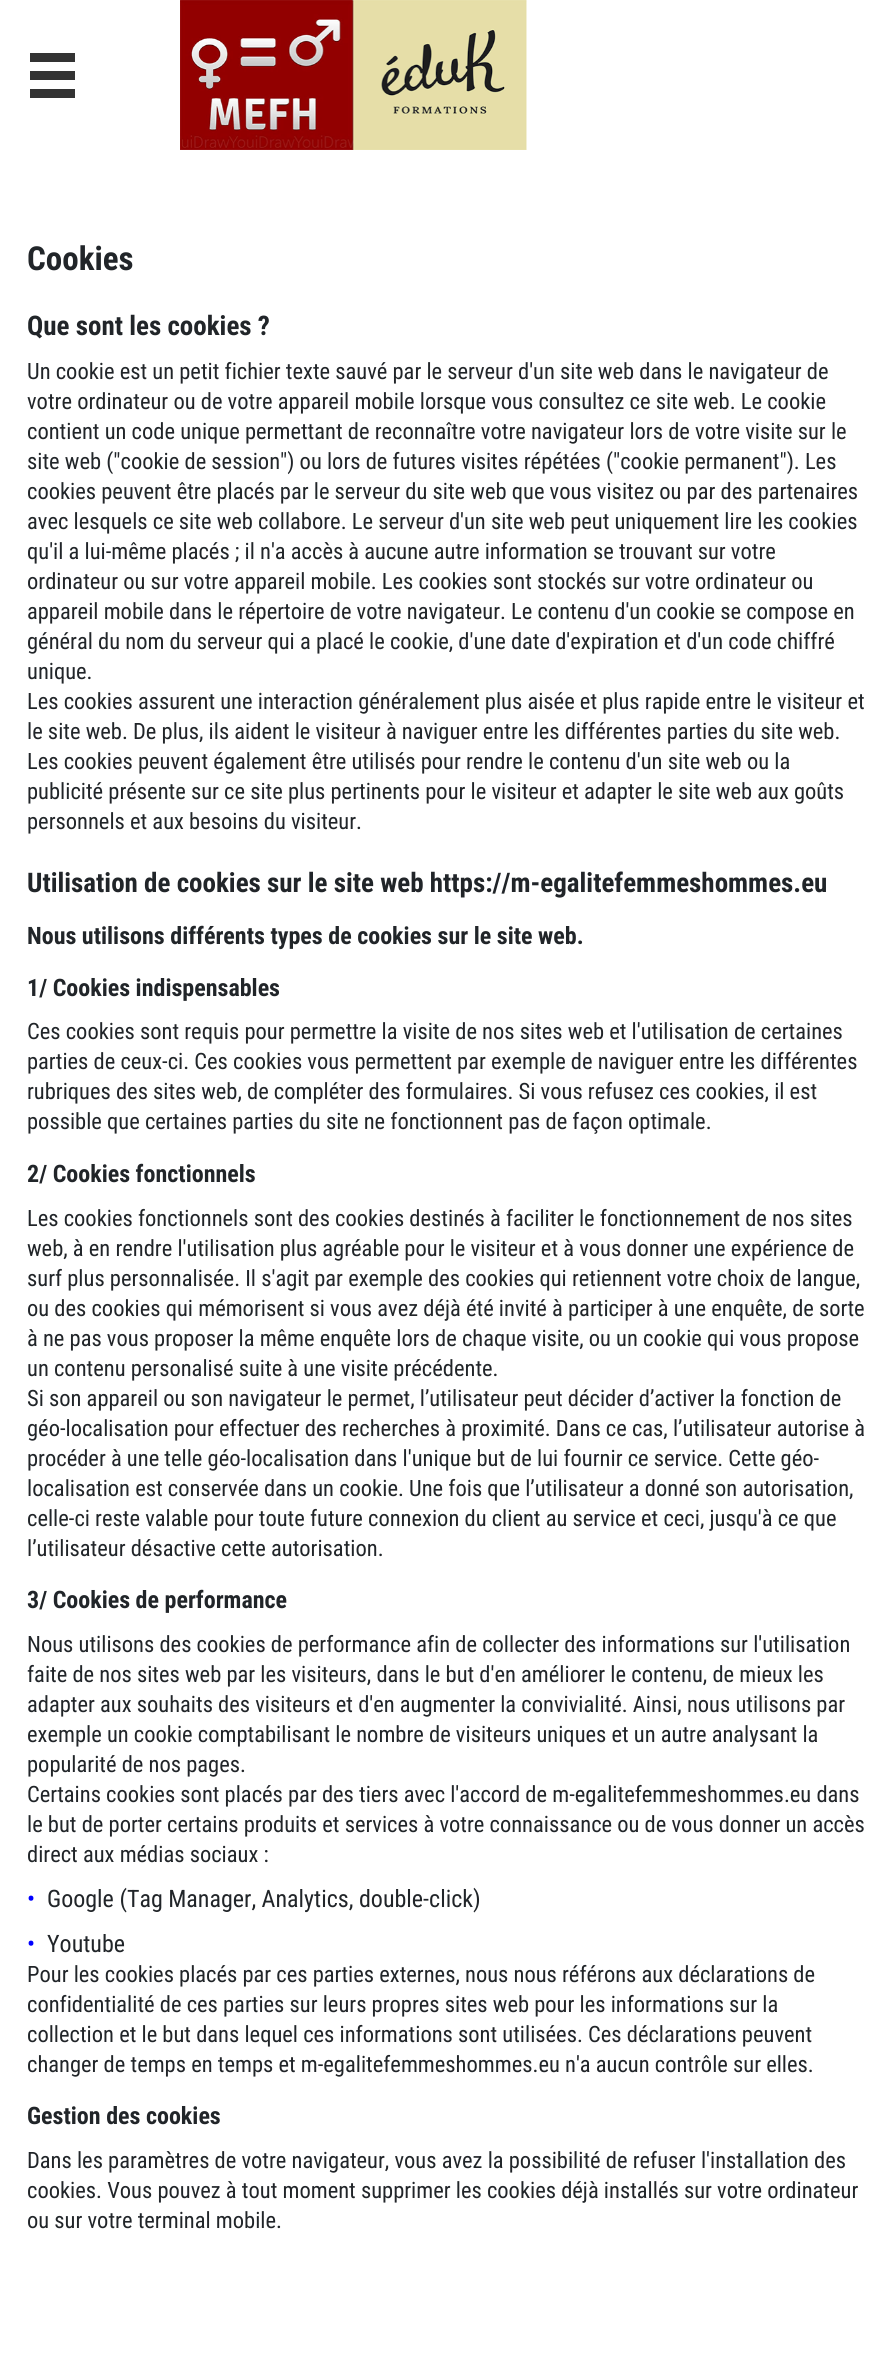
import math
import cairo


def paste(ctx, path, x, y, w, h):
	ctx.save()
	ctx.set_source_surface(cairo.ImageSurface.create_from_png(path), x, y)
	ctx.rectangle(x, y, w, h)
	ctx.fill()
	ctx.restore()

def draw(ctx):
	ctx.set_source_rgb(1, 1, 1)
	ctx.paint()
	ctx.set_source_rgb(0.2, 0.2, 0.2)
	ctx.rectangle(30, 89, 45, 9)
	ctx.rectangle(30, 71, 45, 9)
	ctx.rectangle(30, 53, 45, 9)
	ctx.fill()
	paste(ctx, 'media/1.png', 180, 0, 347, 150)
	ctx.select_font_face('Roboto Condensed', cairo.FONT_SLANT_NORMAL, cairo.FONT_WEIGHT_BOLD)
	ctx.set_font_size(33)
	ctx.set_source_rgb(0.129, 0.145, 0.161)
	ctx.move_to(27, 270)
	ctx.show_text('Cookies')
	ctx.set_font_size(27)
	ctx.move_to(27, 335)
	ctx.show_text('Que sont les cookies ?')
	ctx.select_font_face('Roboto Condensed')
	ctx.set_font_size(22.5)
	for x, y, s in [
		(27, 379, 'Un cookie est un petit fichier texte sauvé par le serveur d\'un site web dans le navigateur de'),
		(27, 409, 'votre ordinateur ou de votre appareil mobile lorsque vous consultez ce site web. Le cookie'),
		(27, 439, 'contient un code unique permettant de reconnaître votre navigateur lors de votre visite sur le'),
		(27, 469, 'site web ("cookie de session") ou lors de futures visites répétées ("cookie permanent"). Les'),
		(27, 499, 'cookies peuvent être placés par le serveur du site web que vous visitez ou par des partenaires'),
		(27, 529, 'avec lesquels ce site web collabore. Le serveur d\'un site web peut uniquement lire les cookies'),
		(27, 559, 'qu\'il a lui-même placés ; il n\'a accès à aucune autre information se trouvant sur votre'),
		(27, 589, 'ordinateur ou sur votre appareil mobile. Les cookies sont stockés sur votre ordinateur ou'),
		(27, 619, 'appareil mobile dans le répertoire de votre navigateur. Le contenu d\'un cookie se compose en'),
		(27, 649, 'général du nom du serveur qui a placé le cookie, d\'une date d\'expiration et d\'un code chiffré'),
		(27, 679, 'unique.'),
		(27, 709, 'Les cookies assurent une interaction généralement plus aisée et plus rapide entre le visiteur et'),
		(27, 739, 'le site web. De plus, ils aident le visiteur à naviguer entre les différentes parties du site web.'),
		(27, 769, 'Les cookies peuvent également être utilisés pour rendre le contenu d\'un site web ou la'),
		(27, 799, 'publicité présente sur ce site plus pertinents pour le visiteur et adapter le site web aux goûts'),
		(27, 829, 'personnels et aux besoins du visiteur.'),
	]:
		ctx.move_to(x, y)
		ctx.show_text(s)
	ctx.select_font_face('Roboto Condensed', cairo.FONT_SLANT_NORMAL, cairo.FONT_WEIGHT_BOLD)
	ctx.set_font_size(27)
	ctx.move_to(27, 892)
	ctx.show_text('Utilisation de cookies sur le site web https://m-egalitefemmeshommes.eu')
	ctx.set_font_size(24)
	ctx.move_to(27, 944)
	ctx.show_text('Nous utilisons différents types de cookies sur le site web.')
	ctx.move_to(27, 996)
	ctx.show_text('1/ Cookies indispensables')
	ctx.select_font_face('Roboto Condensed')
	ctx.set_font_size(22.5)
	for x, y, s in [
		(27, 1039, 'Ces cookies sont requis pour permettre la visite de nos sites web et l\'utilisation de certaines'),
		(27, 1069, 'parties de ceux-ci. Ces cookies vous permettent par exemple de naviguer entre les différentes'),
		(27, 1099, 'rubriques des sites web, de compléter des formulaires. Si vous refusez ces cookies, il est'),
		(27, 1129, 'possible que certaines parties du site ne fonctionnent pas de façon optimale.'),
	]:
		ctx.move_to(x, y)
		ctx.show_text(s)
	ctx.select_font_face('Roboto Condensed', cairo.FONT_SLANT_NORMAL, cairo.FONT_WEIGHT_BOLD)
	ctx.set_font_size(24)
	ctx.move_to(27, 1182)
	ctx.show_text('2/ Cookies fonctionnels')
	ctx.select_font_face('Roboto Condensed')
	ctx.set_font_size(22.5)
	for x, y, s in [
		(27, 1226, 'Les cookies fonctionnels sont des cookies destinés à faciliter le fonctionnement de nos sites'),
		(27, 1256, 'web, à en rendre l\'utilisation plus agréable pour le visiteur et à vous donner une expérience de'),
		(27, 1286, 'surf plus personnalisée. Il s\'agit par exemple des cookies qui retiennent votre choix de langue,'),
		(27, 1316, 'ou des cookies qui mémorisent si vous avez déjà été invité à participer à une enquête, de sorte'),
		(27, 1346, 'à ne pas vous proposer la même enquête lors de chaque visite, ou un cookie qui vous propose'),
		(27, 1376, 'un contenu personalisé suite à une visite précédente.'),
		(27, 1406, 'Si son appareil ou son navigateur le permet, l’utilisateur peut décider d’activer la fonction de'),
		(27, 1436, 'géo-localisation pour effectuer des recherches à proximité. Dans ce cas, l’utilisateur autorise à'),
		(27, 1466, 'procéder à une telle géo-localisation dans l\'unique but de lui fournir ce service. Cette géo-'),
		(27, 1496, 'localisation est conservée dans un cookie. Une fois que l’utilisateur a donné son autorisation,'),
		(27, 1526, 'celle-ci reste valable pour toute future connexion du client au service et ceci, jusqu\'à ce que'),
		(27, 1556, 'l’utilisateur désactive cette autorisation.'),
	]:
		ctx.move_to(x, y)
		ctx.show_text(s)
	ctx.select_font_face('Roboto Condensed', cairo.FONT_SLANT_NORMAL, cairo.FONT_WEIGHT_BOLD)
	ctx.set_font_size(24)
	ctx.move_to(27, 1608)
	ctx.show_text('3/ Cookies de performance')
	ctx.select_font_face('Roboto Condensed')
	ctx.set_font_size(22.5)
	for x, y, s in [
		(27, 1652, 'Nous utilisons des cookies de performance afin de collecter des informations sur l\'utilisation'),
		(27, 1682, 'faite de nos sites web par les visiteurs, dans le but d\'en améliorer le contenu, de mieux les'),
		(27, 1712, 'adapter aux souhaits des visiteurs et d\'en augmenter la convivialité. Ainsi, nous utilisons par'),
		(27, 1742, 'exemple un cookie comptabilisant le nombre de visiteurs uniques et un autre analysant la'),
		(27, 1772, 'popularité de nos pages.'),
		(27, 1802, 'Certains cookies sont placés par des tiers avec l\'accord de m-egalitefemmeshommes.eu dans'),
		(27, 1832, 'le but de porter certains produits et services à votre connaissance ou de vous donner un accès'),
		(27, 1862, 'direct aux médias sociaux :'),
	]:
		ctx.move_to(x, y)
		ctx.show_text(s)
	ctx.set_font_size(24)
	ctx.set_source_rgb(0, 0, 1)
	ctx.move_to(27, 1907)
	ctx.show_text('•')
	ctx.set_source_rgb(0.129, 0.145, 0.161)
	ctx.move_to(47, 1907)
	ctx.show_text('Google (Tag Manager, Analytics, double-click)')
	ctx.set_source_rgb(0, 0, 1)
	ctx.move_to(27, 1952)
	ctx.show_text('•')
	ctx.set_source_rgb(0.129, 0.145, 0.161)
	ctx.move_to(47, 1952)
	ctx.show_text('Youtube')
	ctx.set_font_size(22.5)
	for x, y, s in [
		(27, 1982, 'Pour les cookies placés par ces parties externes, nous nous référons aux déclarations de'),
		(27, 2012, 'confidentialité de ces parties sur leurs propres sites web pour les informations sur la'),
		(27, 2042, 'collection et le but dans lequel ces informations sont utilisées. Ces déclarations peuvent'),
		(27, 2072, 'changer de temps en temps et m-egalitefemmeshommes.eu n\'a aucun contrôle sur elles.'),
	]:
		ctx.move_to(x, y)
		ctx.show_text(s)
	ctx.select_font_face('Roboto Condensed', cairo.FONT_SLANT_NORMAL, cairo.FONT_WEIGHT_BOLD)
	ctx.set_font_size(24)
	ctx.move_to(27, 2124)
	ctx.show_text('Gestion des cookies')
	ctx.select_font_face('Roboto Condensed')
	ctx.set_font_size(22.5)
	for x, y, s in [
		(27, 2168, 'Dans les paramètres de votre navigateur, vous avez la possibilité de refuser l\'installation des'),
		(27, 2198, 'cookies. Vous pouvez à tout moment supprimer les cookies déjà installés sur votre ordinateur'),
		(27, 2228, 'ou sur votre terminal mobile.'),
	]:
		ctx.move_to(x, y)
		ctx.show_text(s)


surface = cairo.ImageSurface(cairo.FORMAT_RGB24, 892, 2374)
ctx = cairo.Context(surface)
options = cairo.FontOptions()
options.set_hint_metrics(cairo.HINT_METRICS_OFF)
options.set_hint_style(cairo.HINT_STYLE_NONE)
ctx.set_font_options(options)
ctx.set_miter_limit(4)
draw(ctx)
surface.write_to_png('image.png')
